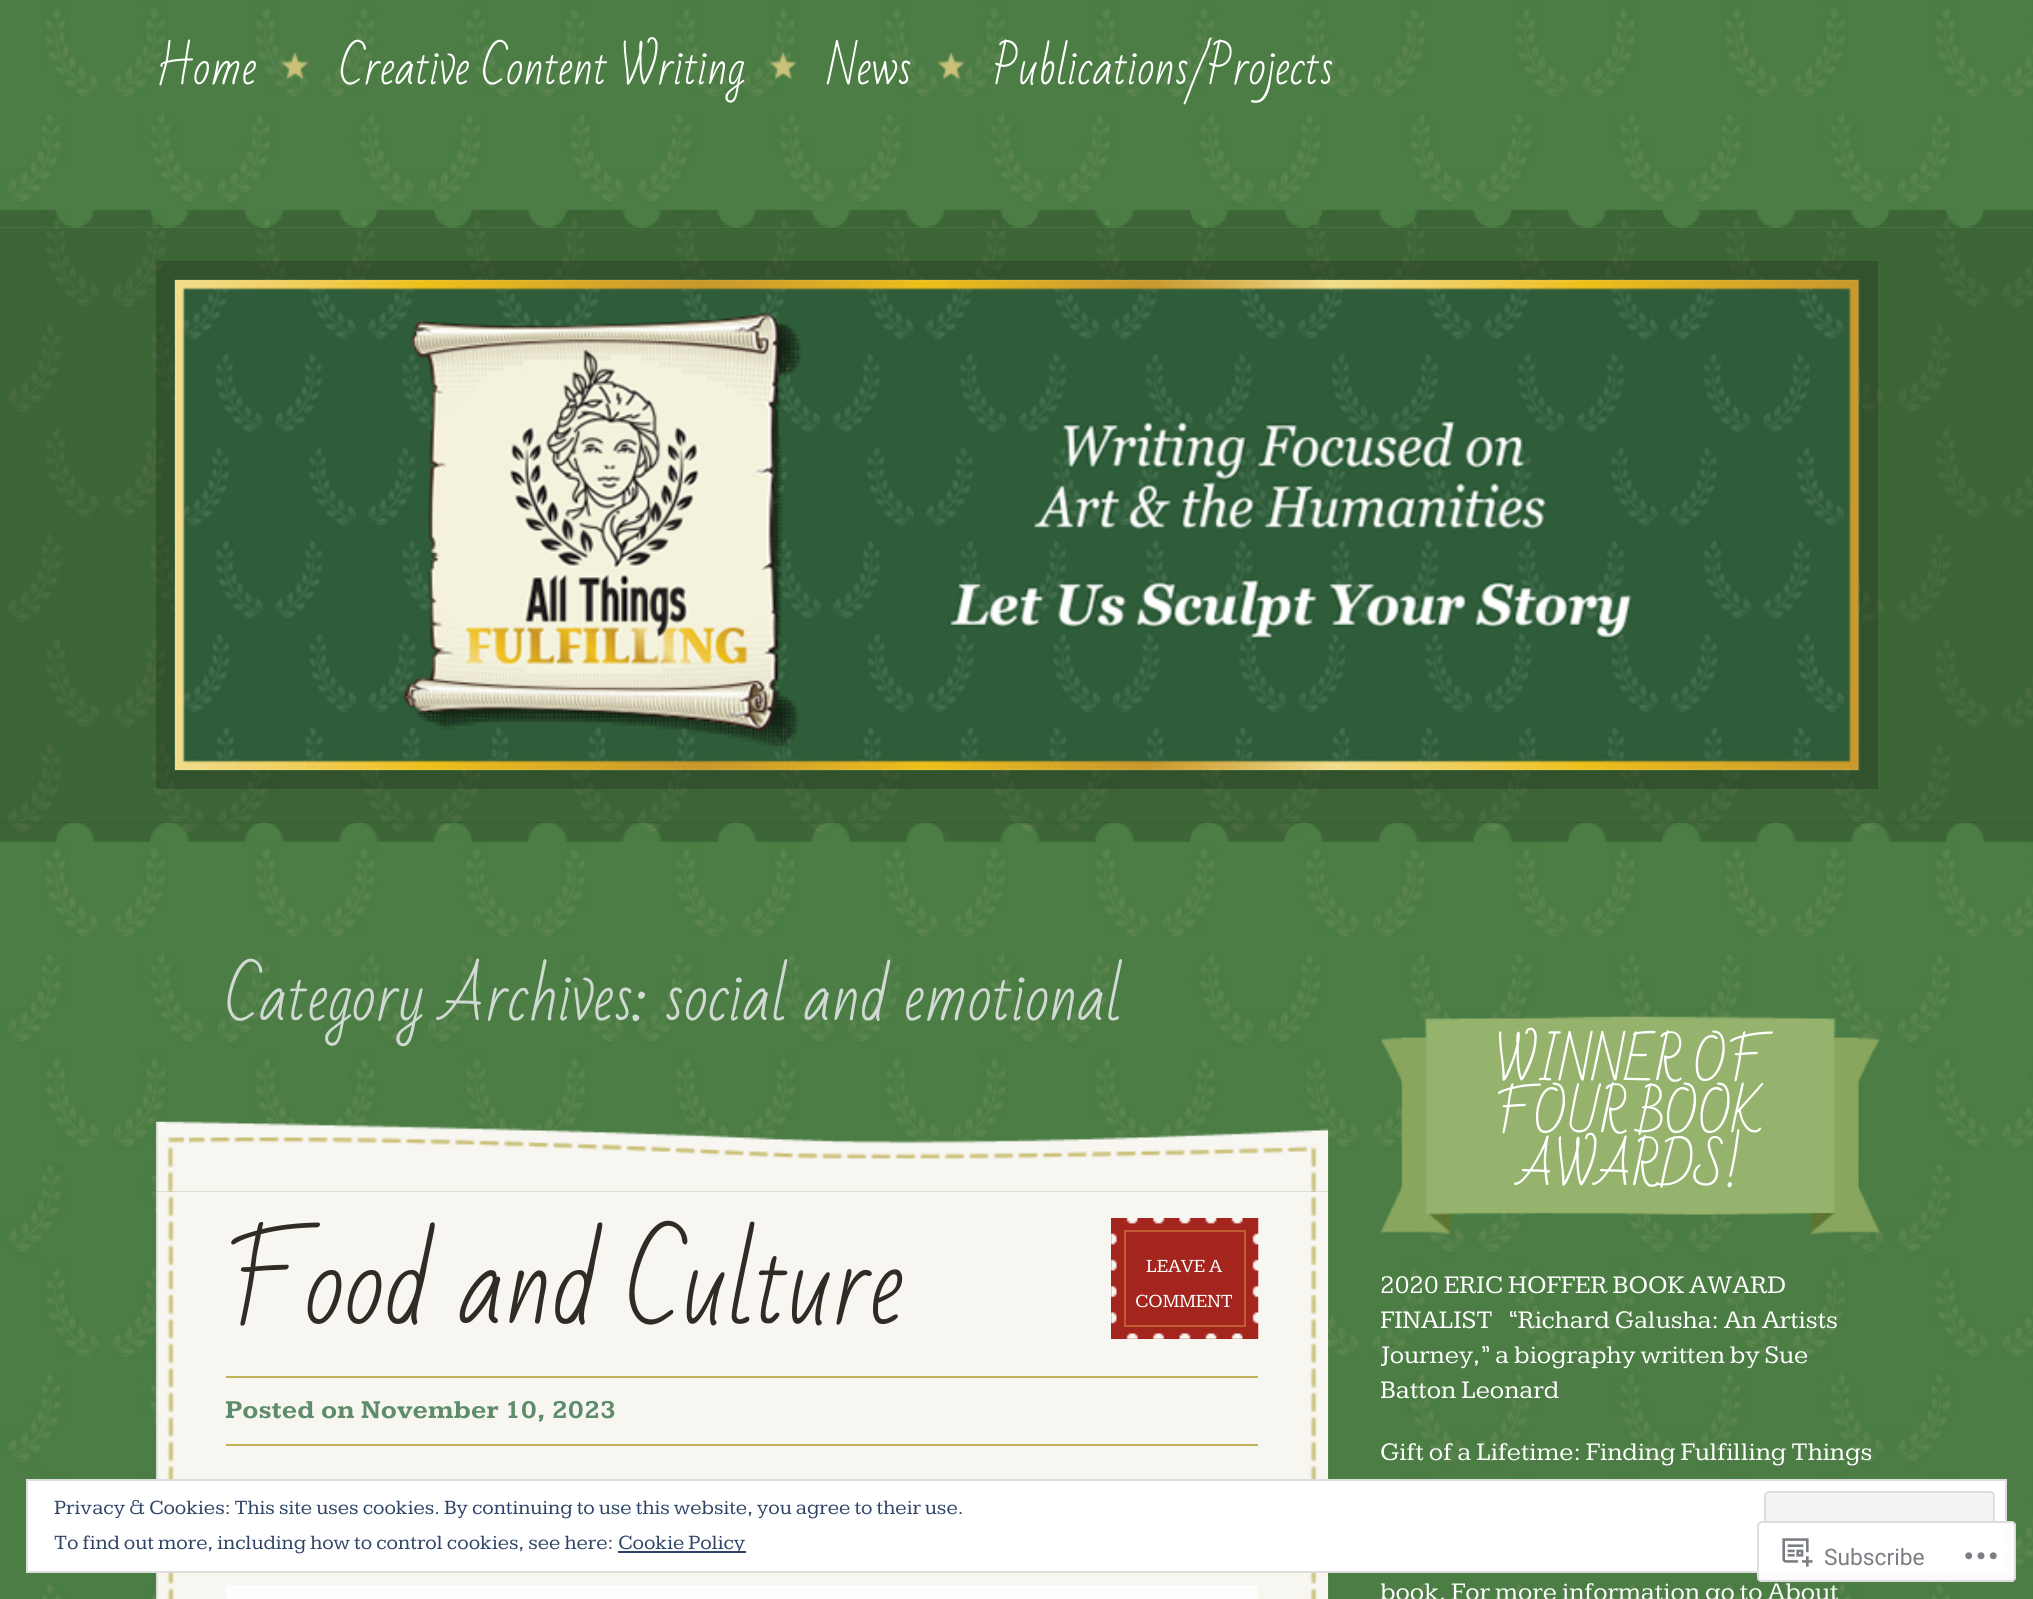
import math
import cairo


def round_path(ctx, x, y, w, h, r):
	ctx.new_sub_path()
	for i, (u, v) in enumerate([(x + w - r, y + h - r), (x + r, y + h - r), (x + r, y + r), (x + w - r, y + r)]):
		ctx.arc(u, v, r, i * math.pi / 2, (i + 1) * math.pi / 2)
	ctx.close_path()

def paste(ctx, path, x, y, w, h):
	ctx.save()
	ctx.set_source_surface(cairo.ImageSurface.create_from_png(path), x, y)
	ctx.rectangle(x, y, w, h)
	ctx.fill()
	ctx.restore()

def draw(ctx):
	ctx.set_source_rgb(1, 1, 1)
	ctx.paint()
	paste(ctx, 'media/1.png', 0, 0, 2033, 1599)
	ctx.select_font_face('Bad Script')
	ctx.set_font_size(45.5)
	ctx.set_source_rgb(1, 1, 1)
	ctx.move_to(155, 84)
	ctx.show_text('Home')
	paste(ctx, 'media/2.png', 281, 52, 27, 27)
	ctx.move_to(339, 84)
	ctx.show_text('Creative Content Writing')
	paste(ctx, 'media/3.png', 770, 52, 27, 27)
	ctx.move_to(827, 84)
	ctx.show_text('News')
	paste(ctx, 'media/4.png', 938, 52, 27, 27)
	ctx.move_to(993, 84)
	ctx.show_text('Publications/Projects')
	paste(ctx, 'media/5.png', 0, 210, 2033, 632)
	ctx.set_source_rgba(0, 0, 0, 0.19)
	ctx.rectangle(0, 228, 2033, 595)
	ctx.fill()
	ctx.rectangle(165, 270, 1704, 510)
	ctx.set_line_width(18)
	ctx.stroke()
	paste(ctx, 'media/6.png', 175, 280, 1684, 490)
	ctx.set_font_size(63)
	ctx.set_source_rgb(0.816, 0.855, 0.827)
	ctx.move_to(225, 1020)
	ctx.show_text('Category Archives: social and emotional')
	paste(ctx, 'media/7.png', 155, 1121, 1174, 71)
	paste(ctx, 'media/8.png', 155, 1191, 1174, 408)
	ctx.set_font_size(105)
	ctx.set_source_rgb(0.188, 0.169, 0.141)
	ctx.move_to(225, 1323)
	ctx.show_text('Food and Culture')
	ctx.set_source_rgb(0.639, 0.145, 0.114)
	ctx.rectangle(1111, 1218, 147, 121)
	ctx.fill()
	paste(ctx, 'media/9.png', 1111, 1218, 148, 121)
	ctx.rectangle(1125, 1231, 120, 95)
	ctx.set_source_rgb(0.749, 0.361, 0.196)
	ctx.set_line_width(2)
	ctx.stroke()
	ctx.select_font_face('Kameron')
	ctx.set_font_size(19.25)
	ctx.set_source_rgb(1, 1, 1)
	ctx.move_to(1146, 1272)
	ctx.show_text('LEAVE A')
	ctx.move_to(1135, 1307)
	ctx.show_text('COMMENT')
	ctx.set_source_rgb(0.749, 0.702, 0.353)
	ctx.rectangle(226, 1376, 1032, 2)
	ctx.fill()
	ctx.rectangle(226, 1444, 1032, 2)
	ctx.fill()
	ctx.select_font_face('Kameron', cairo.FONT_SLANT_NORMAL, cairo.FONT_WEIGHT_BOLD)
	ctx.set_font_size(26.25)
	ctx.set_source_rgb(0.365, 0.549, 0.416)
	ctx.move_to(225, 1418)
	ctx.show_text('Posted on November 10, 2023')
	ctx.set_source_rgb(0.992, 0.992, 0.992)
	ctx.rectangle(226, 1585, 1032, 14)
	ctx.fill()
	paste(ctx, 'media/10.png', 1381, 1016, 499, 218)
	paste(ctx, 'media/11.png', 1401, 1037, 458, 176)
	ctx.select_font_face('Bad Script')
	ctx.set_font_size(50.75)
	ctx.set_source_rgb(1, 1, 1)
	for x, y, s in [
		(1494, 1080, 'WINNER OF'),
		(1495, 1132, 'FOUR BOOK'),
		(1518, 1185, 'AWARDS!'),
	]:
		ctx.move_to(x, y)
		ctx.show_text(s)
	ctx.select_font_face('Kameron')
	ctx.set_font_size(26.25)
	ctx.move_to(1380, 1293)
	ctx.show_text('2020 ERIC HOFFER BOOK AWARD')
	ctx.save()
	ctx.rectangle(1381, 947, 499, 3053)
	ctx.clip()
	for x, y, s in [
		(1380, 1328, 'FINALIST   “Richard Galusha: An Artists'),
		(1380, 1363, 'Journey,” a biography written by Sue'),
		(1380, 1398, 'Batton Leonard'),
	]:
		ctx.move_to(x, y)
		ctx.show_text(s)
	ctx.restore()
	ctx.move_to(1380, 1460)
	ctx.show_text('Gift of a Lifetime: Finding Fulfilling Things')
	ctx.save()
	ctx.rectangle(1381, 947, 499, 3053)
	ctx.clip()
	ctx.move_to(1380, 1600)
	ctx.show_text('book. For more information go to About')
	ctx.restore()
	ctx.rectangle(27, 1480, 1979, 92)
	ctx.fill_preserve()
	ctx.set_source_rgb(0.871, 0.871, 0.871)
	ctx.stroke()
	ctx.set_font_size(21)
	ctx.set_source_rgb(0.18, 0.267, 0.404)
	ctx.move_to(54, 1514)
	ctx.show_text('Privacy & Cookies: This site uses cookies. By continuing to use this website, you agree to their use.')
	ctx.set_source_rgb(0.953, 0.953, 0.953)
	round_path(ctx, 1765, 1492, 229, 65, 4)
	ctx.fill_preserve()
	ctx.set_source_rgb(0.871, 0.871, 0.871)
	ctx.stroke()
	ctx.set_source_rgb(0.18, 0.267, 0.404)
	ctx.move_to(54, 1549)
	ctx.show_text('To find out more, including how to control cookies, see here:')
	ctx.rectangle(618, 1551, 128, 2)
	ctx.fill()
	ctx.move_to(618, 1549)
	ctx.show_text('Cookie Policy')
	ctx.set_source_rgba(1, 1, 1, 0.98)
	round_path(ctx, 1757, 1521, 259, 61, 5)
	ctx.fill()
	round_path(ctx, 1758, 1522, 257, 59, 4)
	ctx.set_source_rgba(0.863, 0.863, 0.871, 0.98)
	ctx.stroke()
	paste(ctx, 'media/12.png', 1782, 1538, 31, 29)
	ctx.select_font_face('Roboto')
	ctx.set_font_size(22.75)
	ctx.set_source_rgb(0.482, 0.498, 0.518)
	ctx.move_to(1824, 1565)
	ctx.show_text('Subscribe')
	paste(ctx, 'media/13.png', 1965, 1552, 32, 8)


surface = cairo.ImageSurface(cairo.FORMAT_RGB24, 2033, 1599)
ctx = cairo.Context(surface)
options = cairo.FontOptions()
options.set_hint_metrics(cairo.HINT_METRICS_OFF)
options.set_hint_style(cairo.HINT_STYLE_NONE)
ctx.set_font_options(options)
ctx.set_miter_limit(4)
draw(ctx)
surface.write_to_png('image.png')
